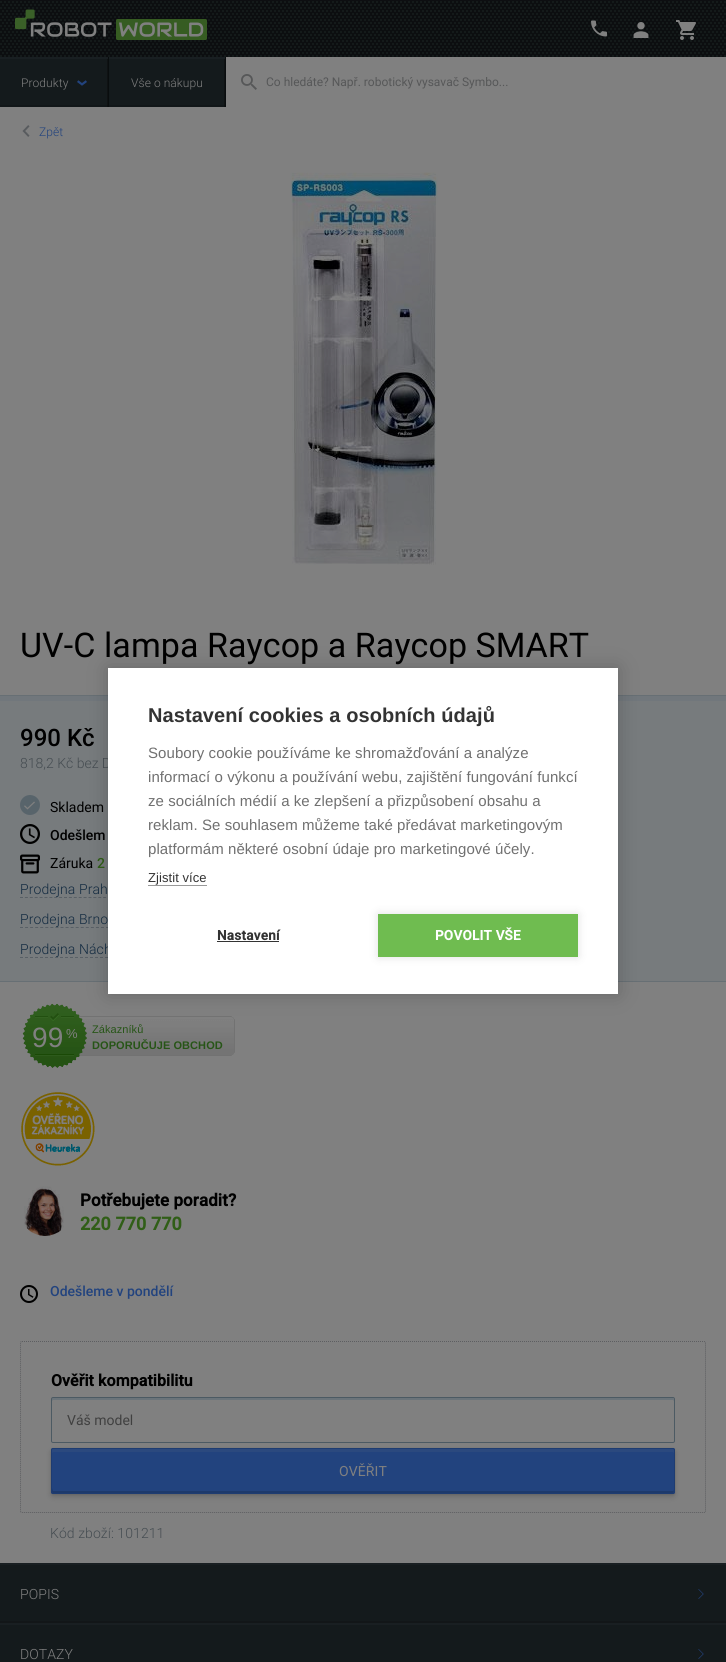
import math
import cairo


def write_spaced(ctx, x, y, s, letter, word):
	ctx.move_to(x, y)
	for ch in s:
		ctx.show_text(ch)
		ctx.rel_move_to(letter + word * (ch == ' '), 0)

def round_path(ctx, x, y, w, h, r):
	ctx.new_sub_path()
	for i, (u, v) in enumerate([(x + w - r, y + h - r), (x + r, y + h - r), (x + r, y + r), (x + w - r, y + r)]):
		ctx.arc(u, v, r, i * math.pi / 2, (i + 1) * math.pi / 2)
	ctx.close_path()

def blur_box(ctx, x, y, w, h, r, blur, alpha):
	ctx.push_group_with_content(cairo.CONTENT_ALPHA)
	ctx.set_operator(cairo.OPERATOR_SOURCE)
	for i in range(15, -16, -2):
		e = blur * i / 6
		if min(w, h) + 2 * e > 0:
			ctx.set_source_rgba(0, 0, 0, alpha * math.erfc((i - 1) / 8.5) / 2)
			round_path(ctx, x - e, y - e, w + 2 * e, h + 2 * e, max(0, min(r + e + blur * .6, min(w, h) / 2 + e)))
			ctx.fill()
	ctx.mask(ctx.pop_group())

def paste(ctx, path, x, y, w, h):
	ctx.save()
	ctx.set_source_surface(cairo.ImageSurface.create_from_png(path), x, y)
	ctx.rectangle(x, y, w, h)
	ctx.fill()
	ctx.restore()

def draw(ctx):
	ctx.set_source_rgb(0.502, 0.502, 0.502)
	ctx.paint()
	ctx.set_source_rgb(0.051, 0.055, 0.067)
	ctx.rectangle(0, 0, 726, 1)
	ctx.fill()
	paste(ctx, 'media/1.png', 0, 1, 726, 56)
	paste(ctx, 'media/2.png', 15, 9, 192, 31)
	paste(ctx, 'media/3.png', 591, 20, 16, 17)
	paste(ctx, 'media/4.png', 633, 22, 16, 16)
	paste(ctx, 'media/5.png', 676, 20, 20, 20)
	ctx.set_source_rgb(0.082, 0.102, 0.11)
	ctx.rectangle(0, 59, 224, 48)
	ctx.fill()
	ctx.set_source_rgb(0.059, 0.071, 0.078)
	ctx.rectangle(107, 57, 1, 50)
	ctx.fill()
	ctx.set_source_rgba(0, 0, 0, 0.15)
	ctx.rectangle(0, 105, 108, 2)
	ctx.fill()
	ctx.set_source_rgb(0.039, 0.051, 0.055)
	ctx.rectangle(108, 57, 1, 50)
	ctx.fill()
	ctx.set_source_rgb(0.098, 0.122, 0.133)
	ctx.rectangle(0, 57, 108, 2)
	ctx.fill()
	ctx.select_font_face('Roboto Light')
	ctx.set_font_size(12)
	ctx.set_source_rgb(0.502, 0.502, 0.502)
	write_spaced(ctx, 21, 87, 'Produkty', 0.07, 0)
	paste(ctx, 'media/6.png', 77, 80, 10, 6)
	ctx.set_source_rgb(0.059, 0.071, 0.078)
	ctx.rectangle(224, 57, 1, 50)
	ctx.fill()
	ctx.set_source_rgba(0, 0, 0, 0.15)
	ctx.rectangle(109, 105, 116, 2)
	ctx.fill()
	ctx.set_source_rgb(0.039, 0.051, 0.055)
	ctx.rectangle(225, 57, 1, 50)
	ctx.fill()
	ctx.set_source_rgb(0.098, 0.122, 0.133)
	ctx.rectangle(109, 57, 116, 2)
	ctx.fill()
	ctx.set_source_rgb(0.502, 0.502, 0.502)
	write_spaced(ctx, 131, 87, 'Vše o nákupu', 0.07, 0)
	paste(ctx, 'media/7.png', 241, 74, 16, 16)
	ctx.select_font_face('Roboto')
	ctx.set_source_rgb(0.337, 0.341, 0.345)
	ctx.move_to(266, 86)
	ctx.show_text('Co hledáte? Např. robotický vysavač Symbo...')
	paste(ctx, 'media/8.png', 22, 125, 8, 12)
	ctx.select_font_face('Roboto Light')
	ctx.set_source_rgb(0.133, 0.263, 0.494)
	write_spaced(ctx, 39, 136, 'Zpět', 0.07, 0)
	paste(ctx, 'media/9.png', 290, 172, 148, 393)
	ctx.select_font_face('Roboto')
	ctx.set_font_size(34)
	ctx.set_source_rgb(0, 0, 0)
	write_spaced(ctx, 20, 657, 'UV-C lampa Raycop a Raycop SMART', 0.07, 0)
	ctx.set_source_rgb(0.467, 0.482, 0.49)
	ctx.rectangle(0, 701, 726, 280)
	ctx.fill()
	ctx.set_source_rgb(0.443, 0.467, 0.486)
	ctx.rectangle(0, 696, 726, 5)
	ctx.fill()
	ctx.set_source_rgb(0.404, 0.435, 0.455)
	ctx.rectangle(0, 695, 726, 1)
	ctx.rectangle(0, 981, 726, 1)
	ctx.fill()
	ctx.select_font_face('Roboto Medium')
	ctx.set_font_size(24)
	ctx.set_source_rgb(0, 0, 0)
	ctx.move_to(20, 746)
	ctx.show_text('990 Kč')
	ctx.select_font_face('Roboto Light')
	ctx.set_font_size(14)
	ctx.set_source_rgb(0.275, 0.302, 0.322)
	ctx.move_to(20, 768)
	ctx.show_text('818,2 Kč bez D')
	ctx.set_source_rgb(0.345, 0.392, 0.42)
	ctx.new_path()
	ctx.arc(30, 805, 10, 0, 2 * math.pi)
	ctx.fill()
	paste(ctx, 'media/10.png', 24, 801, 11, 9)
	ctx.select_font_face('Roboto')
	ctx.set_source_rgb(0, 0, 0)
	ctx.move_to(50, 812)
	ctx.show_text('Skladem')
	paste(ctx, 'media/11.png', 20, 824, 20, 20)
	ctx.select_font_face('Roboto Medium')
	ctx.move_to(50, 840)
	ctx.show_text('Odešlem')
	paste(ctx, 'media/12.png', 20, 854, 20, 20)
	ctx.select_font_face('Roboto')
	ctx.move_to(50, 868)
	ctx.show_text('Záruka')
	ctx.select_font_face('Roboto Medium')
	ctx.set_source_rgb(0.188, 0.369, 0.09)
	ctx.move_to(97, 868)
	ctx.show_text('2')
	ctx.select_font_face('Roboto Light')
	ctx.set_source_rgb(0.075, 0.169, 0.255)
	write_spaced(ctx, 20, 894, 'Prodejna Prah', 0.1, 0)
	ctx.new_path()
	ctx.move_to(20, 897.5)
	ctx.line_to(116, 897.5)
	ctx.set_source_rgb(0.349, 0.376, 0.4)
	ctx.set_line_width(1)
	ctx.set_dash([3, 1.89])
	ctx.stroke()
	ctx.set_source_rgb(0.075, 0.169, 0.255)
	write_spaced(ctx, 20, 924, 'Prodejna Brno', 0.1, 0)
	ctx.new_path()
	ctx.move_to(20, 927.5)
	ctx.line_to(109, 927.5)
	ctx.set_source_rgb(0.349, 0.376, 0.4)
	ctx.set_dash([3, 2.06])
	ctx.stroke()
	ctx.set_source_rgb(0.075, 0.169, 0.255)
	write_spaced(ctx, 20, 954, 'Prodejna Nách', 0.1, 0)
	ctx.new_path()
	ctx.move_to(20, 957.5)
	ctx.line_to(128, 957.5)
	ctx.set_source_rgb(0.349, 0.376, 0.4)
	ctx.set_dash([3, 2])
	ctx.stroke()
	paste(ctx, 'media/13.png', 22, 1003, 213, 65)
	ctx.select_font_face('Liberation Sans')
	ctx.set_font_size(28)
	ctx.set_source_rgb(0.502, 0.502, 0.502)
	write_spaced(ctx, 32, 1047, '99', 0.07, 0)
	ctx.set_font_size(13)
	write_spaced(ctx, 66, 1038, '%', 0.07, 0)
	ctx.set_font_size(11)
	ctx.set_source_rgb(0.153, 0.333, 0.09)
	write_spaced(ctx, 92, 1033, 'Zákazníků', 0.07, 0)
	ctx.select_font_face('Liberation Sans', cairo.FONT_SLANT_NORMAL, cairo.FONT_WEIGHT_BOLD)
	write_spaced(ctx, 92, 1049, 'DOPORUČUJE OBCHOD', 0.07, 0)
	paste(ctx, 'media/14.png', 21, 1092, 74, 74)
	paste(ctx, 'media/15.png', 24, 1186, 40, 50)
	ctx.select_font_face('Roboto', cairo.FONT_SLANT_NORMAL, cairo.FONT_WEIGHT_BOLD)
	ctx.set_font_size(17)
	ctx.set_source_rgb(0, 0, 0)
	write_spaced(ctx, 80, 1206, 'Potřebujete poradit?', 0.07, 0)
	ctx.set_font_size(18)
	ctx.set_source_rgb(0.188, 0.369, 0.09)
	write_spaced(ctx, 80, 1230, '220 770 770', 0.07, 0)
	paste(ctx, 'media/16.png', 20, 1285, 18, 18)
	ctx.select_font_face('Roboto Medium')
	ctx.set_font_size(14)
	ctx.set_source_rgb(0.133, 0.263, 0.494)
	ctx.move_to(50, 1296)
	ctx.show_text('Odešleme v pondělí')
	ctx.new_path()
	ctx.move_to(22, 1341.5)
	ctx.line_to(704, 1341.5)
	ctx.curve_to(705, 1341.5, 705.5, 1342, 705.5, 1343)
	ctx.line_to(705.5, 1511)
	ctx.curve_to(705.5, 1512, 705, 1512.5, 704, 1512.5)
	ctx.line_to(22, 1512.5)
	ctx.curve_to(21, 1512.5, 20.5, 1512, 20.5, 1511)
	ctx.line_to(20.5, 1343)
	ctx.curve_to(20.5, 1342, 21, 1341.5, 22, 1341.5)
	ctx.close_path()
	ctx.set_source_rgb(0.365, 0.369, 0.38)
	ctx.set_dash([1, 1])
	ctx.stroke()
	ctx.select_font_face('Roboto', cairo.FONT_SLANT_NORMAL, cairo.FONT_WEIGHT_BOLD)
	ctx.set_font_size(16)
	ctx.set_source_rgb(0, 0, 0)
	write_spaced(ctx, 51, 1386, 'Ověřit kompatibilitu', 0.07, 0)
	ctx.set_source_rgb(0.42, 0.455, 0.478)
	ctx.set_fill_rule(cairo.FILL_RULE_EVEN_ODD)
	ctx.new_path()
	ctx.move_to(53, 1400)
	ctx.line_to(673, 1400)
	ctx.line_to(674, 1401)
	ctx.curve_to(674, 1400, 674, 1398, 673, 1398)
	ctx.line_to(53, 1398)
	ctx.line_to(52, 1398)
	ctx.line_to(52, 1401)
	ctx.close_path()
	ctx.move_to(52, 1441)
	ctx.line_to(52, 1441)
	ctx.close_path()
	ctx.fill()
	round_path(ctx, 51.5, 1397.5, 623, 45, 1.5)
	ctx.set_source_rgb(0.298, 0.353, 0.388)
	ctx.set_dash([])
	ctx.stroke()
	ctx.select_font_face('Roboto')
	ctx.set_font_size(14)
	ctx.set_source_rgb(0.251, 0.251, 0.251)
	ctx.move_to(67, 1425)
	ctx.show_text('Váš model')
	ctx.set_source_rgb(0, 0, 0)
	blur_box(ctx, 51, 1449, 624, 46, 2, 1, 0.1)
	blur_box(ctx, 51, 1451, 624, 46, 2, 3, 0.15)
	ctx.set_source_rgb(0.133, 0.263, 0.494)
	round_path(ctx, 51, 1448, 624, 46, 2)
	ctx.fill()
	ctx.set_source_rgb(0.169, 0.286, 0.494)
	ctx.set_fill_rule(cairo.FILL_RULE_WINDING)
	ctx.new_path()
	ctx.move_to(53, 1452)
	ctx.line_to(673, 1452)
	ctx.line_to(674, 1453)
	ctx.curve_to(674, 1452, 675, 1449, 673, 1449)
	ctx.line_to(52, 1449)
	ctx.line_to(52, 1453)
	ctx.close_path()
	ctx.fill()
	ctx.set_source_rgb(0.114, 0.224, 0.42)
	ctx.new_path()
	ctx.move_to(52, 1488)
	ctx.curve_to(52, 1489, 51, 1493, 53, 1493)
	ctx.line_to(673, 1493)
	ctx.curve_to(674, 1493, 674, 1491, 674, 1490)
	ctx.line_to(673, 1491)
	ctx.line_to(53, 1491)
	ctx.close_path()
	ctx.fill()
	round_path(ctx, 51.5, 1448.5, 623, 45, 1.5)
	ctx.set_source_rgb(0.118, 0.235, 0.443)
	ctx.stroke()
	ctx.set_source_rgb(0.502, 0.502, 0.502)
	write_spaced(ctx, 339, 1476, 'OVĚŘIT', 0.1, 0)
	ctx.select_font_face('Roboto Light')
	ctx.set_source_rgb(0.275, 0.302, 0.322)
	write_spaced(ctx, 50, 1538, 'Kód zboží: 101211', 0.07, 0)
	ctx.set_source_rgb(0.082, 0.102, 0.11)
	ctx.rectangle(0, 1565, 726, 97)
	ctx.fill()
	ctx.set_source_rgb(0.071, 0.086, 0.094)
	ctx.rectangle(0, 1621, 726, 2)
	ctx.fill()
	ctx.set_source_rgb(0.098, 0.122, 0.133)
	ctx.rectangle(0, 1563, 726, 2)
	ctx.fill()
	ctx.set_source_rgb(0.502, 0.502, 0.502)
	write_spaced(ctx, 20, 1599, 'POPIS', 0.07, 0)
	paste(ctx, 'media/17.png', 698, 1589, 6, 10)
	ctx.set_source_rgb(0.098, 0.122, 0.133)
	ctx.rectangle(0, 1623, 726, 2)
	ctx.fill()
	ctx.set_source_rgb(0.502, 0.502, 0.502)
	write_spaced(ctx, 20, 1659, 'DOTAZY', 0.07, 0)
	paste(ctx, 'media/17.png', 698, 1649, 6, 10)
	ctx.set_source_rgb(0, 0, 0)
	blur_box(ctx, 108, 668, 510, 326, 0, 10, 0.2)
	ctx.set_source_rgb(1, 1, 1)
	ctx.rectangle(108, 668, 510, 326)
	ctx.fill()
	ctx.select_font_face('Liberation Sans', cairo.FONT_SLANT_NORMAL, cairo.FONT_WEIGHT_BOLD)
	ctx.set_font_size(20)
	ctx.set_source_rgb(0.2, 0.2, 0.2)
	write_spaced(ctx, 148, 722, 'Nastavení cookies a osobních údajů', 0.07, 0)
	ctx.select_font_face('Liberation Sans')
	ctx.set_font_size(15)
	ctx.set_source_rgb(0.439, 0.439, 0.439)
	for x, y, s in [
		(148, 758, 'Soubory cookie používáme ke shromažďování a analýze'),
		(148, 782, 'informací o výkonu a používání webu, zajištění fungování funkcí'),
		(148, 806, 'ze sociálních médií a ke zlepšení a přizpůsobení obsahu a'),
		(148, 830, 'reklam. Se souhlasem můžeme také předávat marketingovým'),
		(148, 854, 'platformám některé osobní údaje pro marketingové účely.'),
	]:
		write_spaced(ctx, x, y, s, 0.07, 0)
	ctx.set_font_size(13)
	ctx.set_source_rgb(0.2, 0.2, 0.2)
	write_spaced(ctx, 148, 882, 'Zjistit více', 0.07, 0)
	ctx.set_source_rgb(0.6, 0.6, 0.6)
	ctx.rectangle(148, 885, 59, 1)
	ctx.fill()
	ctx.select_font_face('Roboto', cairo.FONT_SLANT_NORMAL, cairo.FONT_WEIGHT_BOLD)
	ctx.set_font_size(13.5)
	ctx.set_source_rgb(0.2, 0.2, 0.2)
	write_spaced(ctx, 217, 940, 'Nastavení', 0.25, 0)
	ctx.rectangle(217, 941, 62, 1)
	ctx.fill()
	ctx.set_source_rgb(0, 0, 0)
	blur_box(ctx, 378, 914, 200, 43, 0, 5, 0.12)
	ctx.set_source_rgb(0.435, 0.737, 0.314)
	ctx.rectangle(378, 914, 200, 43)
	ctx.fill()
	ctx.set_source_rgb(1, 1, 1)
	write_spaced(ctx, 435, 940, 'POVOLIT VŠE', 0.25, 0)


surface = cairo.ImageSurface(cairo.FORMAT_RGB24, 726, 1662)
ctx = cairo.Context(surface)
options = cairo.FontOptions()
options.set_hint_metrics(cairo.HINT_METRICS_OFF)
options.set_hint_style(cairo.HINT_STYLE_NONE)
ctx.set_font_options(options)
ctx.set_miter_limit(4)
draw(ctx)
surface.write_to_png('image.png')
